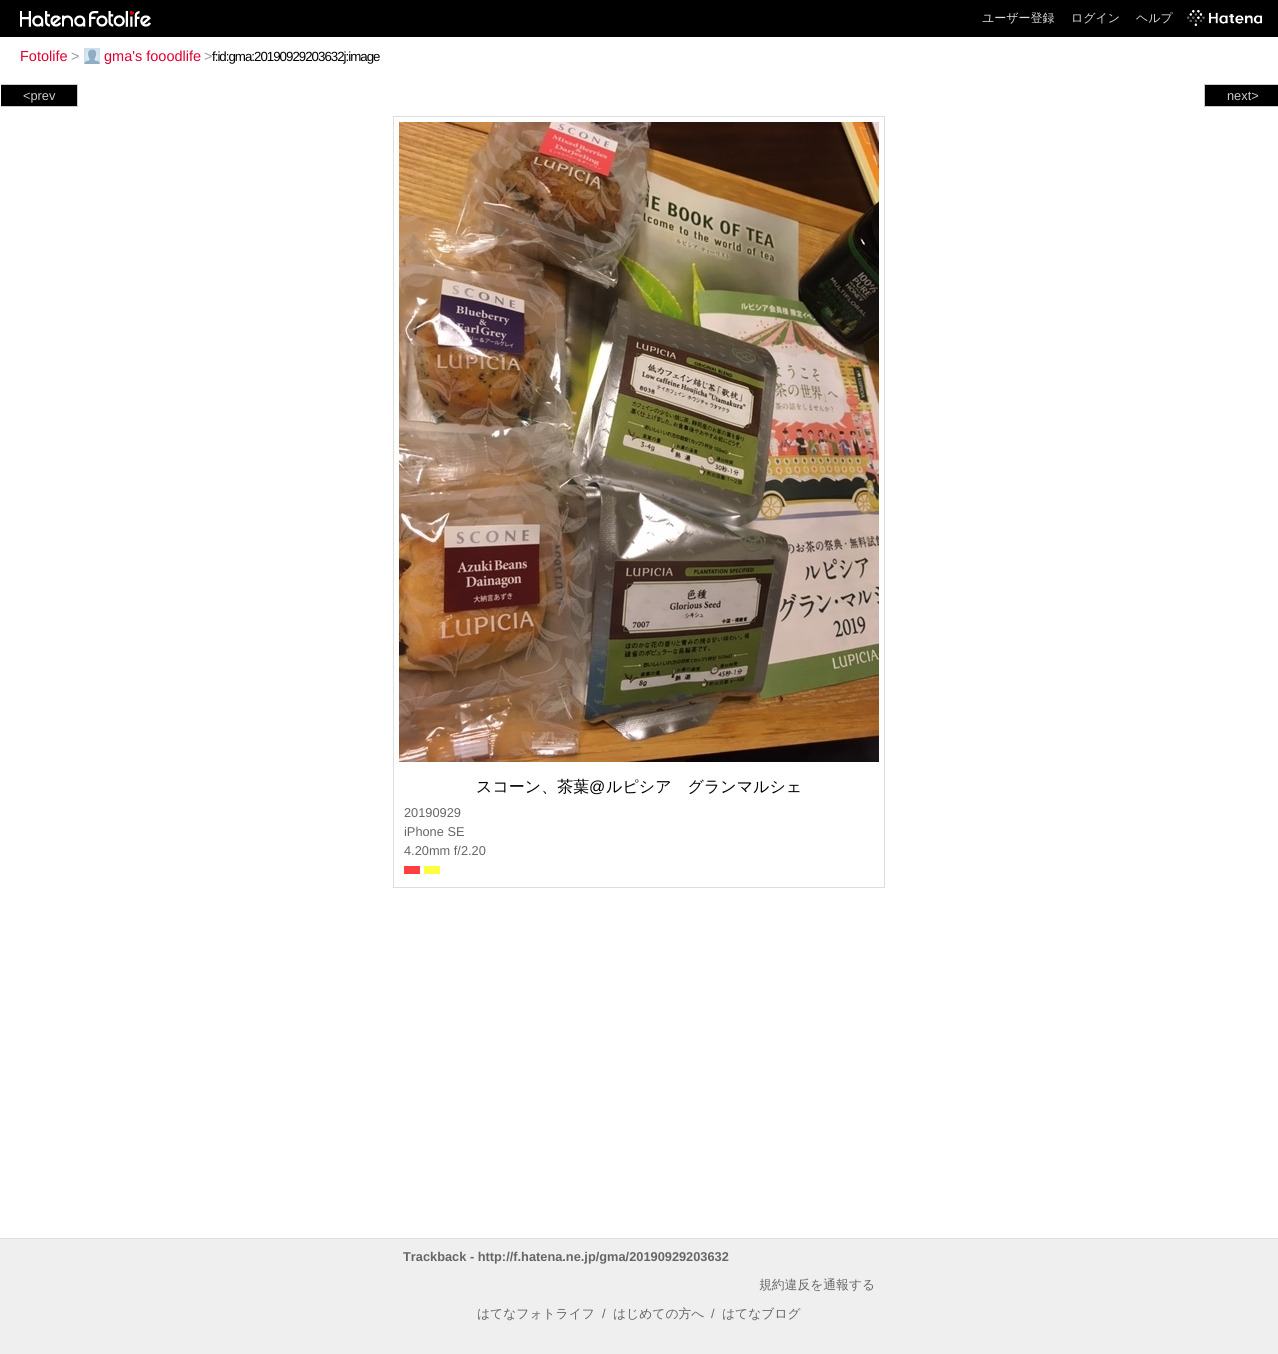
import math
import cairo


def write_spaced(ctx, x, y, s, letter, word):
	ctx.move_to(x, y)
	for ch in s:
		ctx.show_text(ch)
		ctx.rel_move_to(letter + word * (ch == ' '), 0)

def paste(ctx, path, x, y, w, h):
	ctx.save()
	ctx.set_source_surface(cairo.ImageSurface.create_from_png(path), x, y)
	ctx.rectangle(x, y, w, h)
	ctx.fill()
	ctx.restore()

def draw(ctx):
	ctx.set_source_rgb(0.937, 0.937, 0.937)
	ctx.paint()
	ctx.set_source_rgb(0, 0, 0)
	ctx.rectangle(0, 0, 1278, 37)
	ctx.fill()
	paste(ctx, 'media/1.png', 20, 11, 66, 16)
	paste(ctx, 'media/2.png', 89, 11, 62, 16)
	ctx.select_font_face('WenQuanYi Zen Hei Medium')
	ctx.set_font_size(12)
	ctx.set_source_rgb(0.867, 0.867, 0.867)
	for x, y, s in [
		(982, 22, 'ユーザー登録'),
		(1071, 22, 'ログイン'),
		(1136, 22, 'ヘルプ'),
	]:
		ctx.move_to(x, y)
		ctx.show_text(s)
	paste(ctx, 'media/3.png', 1187, 10, 75, 16)
	ctx.set_source_rgb(1, 1, 1)
	ctx.rectangle(0, 37, 1278, 1201)
	ctx.fill()
	ctx.select_font_face('Liberation Sans')
	ctx.set_font_size(14.5)
	ctx.set_source_rgb(0.871, 0, 0.184)
	ctx.move_to(20, 61)
	ctx.show_text('Fotolife')
	ctx.set_source_rgb(0.6, 0.6, 0.6)
	ctx.move_to(71, 61)
	ctx.show_text('>')
	paste(ctx, 'media/4.png', 84, 48, 16, 16)
	ctx.set_source_rgb(0.871, 0, 0.184)
	ctx.move_to(104, 61)
	ctx.show_text('gma\'s fooodlife')
	ctx.set_source_rgb(0.6, 0.6, 0.6)
	ctx.move_to(204, 61)
	ctx.show_text('>')
	ctx.set_font_size(13.3)
	ctx.set_source_rgb(0, 0, 0)
	write_spaced(ctx, 212, 61, 'f:id:gma:20190929203632j:image', -1, 0)
	ctx.set_source_rgb(0.871, 0.871, 0.871)
	ctx.rectangle(0, 1238, 1278, 1)
	ctx.fill()
	ctx.set_source_rgb(0, 0, 0)
	ctx.rectangle(1, 85, 76, 21)
	ctx.fill()
	ctx.set_source_rgb(0.8, 0.8, 0.8)
	ctx.rectangle(1, 84, 77, 1)
	ctx.rectangle(77, 84, 1, 23)
	ctx.rectangle(1, 106, 77, 1)
	ctx.fill()
	ctx.set_font_size(12.8)
	ctx.move_to(23, 100)
	ctx.show_text('<prev')
	ctx.set_source_rgb(0, 0, 0)
	ctx.rectangle(1205, 85, 73, 21)
	ctx.fill()
	ctx.set_source_rgb(0.8, 0.8, 0.8)
	ctx.rectangle(1204, 84, 74, 1)
	ctx.rectangle(1204, 106, 74, 1)
	ctx.rectangle(1204, 84, 1, 23)
	ctx.fill()
	ctx.move_to(1227, 100)
	ctx.show_text('next>')
	ctx.rectangle(393.5, 116.5, 491, 771)
	ctx.set_source_rgb(0.871, 0.871, 0.871)
	ctx.set_line_width(1)
	ctx.stroke()
	paste(ctx, 'media/5.png', 399, 122, 480, 640)
	ctx.select_font_face('WenQuanYi Zen Hei Medium')
	ctx.set_font_size(16)
	ctx.set_source_rgb(0, 0, 0)
	ctx.move_to(476, 792)
	ctx.show_text('スコーン、茶葉')
	ctx.select_font_face('Liberation Sans')
	ctx.move_to(589, 792)
	ctx.show_text('@')
	ctx.select_font_face('WenQuanYi Zen Hei Medium')
	ctx.move_to(606, 792)
	ctx.show_text('ルピシア　グランマルシェ')
	ctx.select_font_face('Liberation Sans')
	ctx.set_font_size(12.8)
	ctx.set_source_rgb(0.4, 0.4, 0.4)
	for x, y, s in [
		(404, 817, '20190929'),
		(404, 836, 'iPhone SE'),
		(404, 855, '4.20mm f/2.20'),
	]:
		ctx.move_to(x, y)
		ctx.show_text(s)
	ctx.set_source_rgb(1, 0.251, 0.251)
	ctx.rectangle(404, 866, 16, 8)
	ctx.fill()
	ctx.set_source_rgb(1, 1, 0.251)
	ctx.rectangle(424, 866, 16, 8)
	ctx.fill()
	ctx.select_font_face('Liberation Sans', cairo.FONT_SLANT_NORMAL, cairo.FONT_WEIGHT_BOLD)
	ctx.set_source_rgb(0.4, 0.4, 0.4)
	ctx.move_to(403, 1261)
	ctx.show_text('Trackback - http://f.hatena.ne.jp/gma/20190929203632')
	ctx.select_font_face('WenQuanYi Zen Hei Medium')
	ctx.move_to(759, 1289)
	ctx.show_text('規約違反を通報する')
	ctx.move_to(477, 1318)
	ctx.show_text('はてなフォトライフ')
	ctx.select_font_face('Liberation Sans')
	ctx.move_to(602, 1318)
	ctx.show_text('/')
	ctx.select_font_face('WenQuanYi Zen Hei Medium')
	ctx.move_to(613, 1318)
	ctx.show_text('はじめての方へ')
	ctx.select_font_face('Liberation Sans')
	ctx.move_to(711, 1318)
	ctx.show_text('/')
	ctx.select_font_face('WenQuanYi Zen Hei Medium')
	ctx.move_to(722, 1318)
	ctx.show_text('はてなブログ')


surface = cairo.ImageSurface(cairo.FORMAT_RGB24, 1278, 1354)
ctx = cairo.Context(surface)
options = cairo.FontOptions()
options.set_hint_metrics(cairo.HINT_METRICS_OFF)
options.set_hint_style(cairo.HINT_STYLE_NONE)
ctx.set_font_options(options)
ctx.set_miter_limit(4)
draw(ctx)
surface.write_to_png('image.png')
